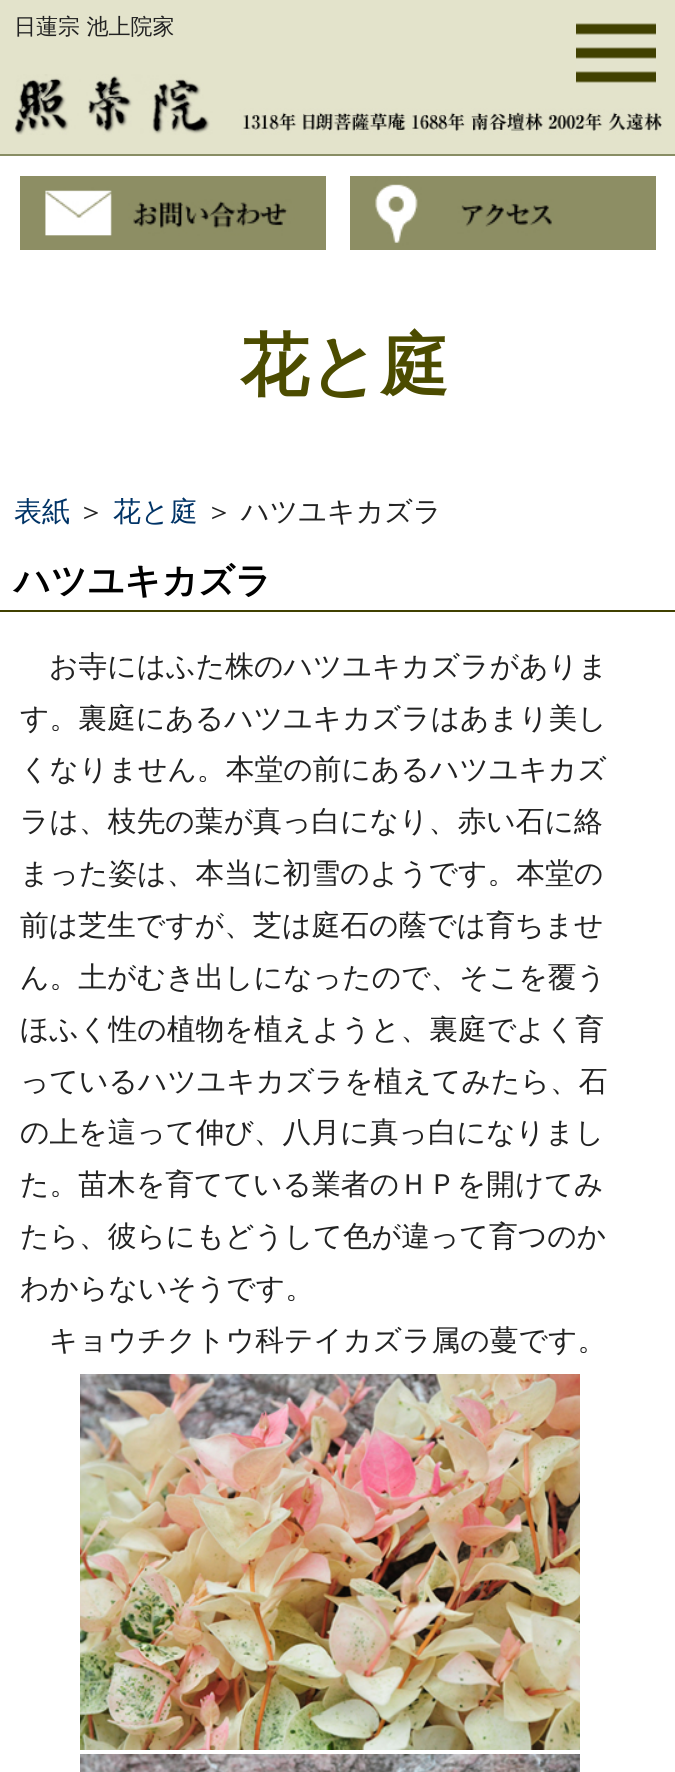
import math
import cairo


def paste(ctx, path, x, y, w, h):
	ctx.save()
	ctx.set_source_surface(cairo.ImageSurface.create_from_png(path), x, y)
	ctx.rectangle(x, y, w, h)
	ctx.fill()
	ctx.restore()

def draw(ctx):
	ctx.set_source_rgb(0.533, 0.553, 0.392)
	ctx.paint()
	ctx.set_source_rgb(0.89, 0.89, 0.796)
	ctx.rectangle(0, 0, 675, 154)
	ctx.fill()
	ctx.select_font_face('WenQuanYi Zen Hei Medium')
	ctx.set_font_size(22)
	ctx.set_source_rgb(0.133, 0.133, 0.133)
	ctx.move_to(14, 34)
	ctx.show_text('日蓮宗 池上院家')
	paste(ctx, 'media/1.png', 14, 74, 648, 61)
	paste(ctx, 'media/2.png', 576, 23, 80, 60)
	ctx.set_source_rgb(1, 1, 1)
	ctx.rectangle(0, 156, 675, 1616)
	ctx.fill()
	paste(ctx, 'media/3.png', 20, 176, 306, 74)
	paste(ctx, 'media/4.png', 350, 176, 306, 74)
	ctx.select_font_face('WenQuanYi Zen Hei', cairo.FONT_SLANT_NORMAL, cairo.FONT_WEIGHT_BOLD)
	ctx.set_font_size(69)
	ctx.set_source_rgb(0.298, 0.298, 0)
	ctx.move_to(240, 389)
	ctx.show_text('花と庭')
	ctx.select_font_face('WenQuanYi Zen Hei Medium')
	ctx.set_font_size(28)
	ctx.set_source_rgb(0, 0.2, 0.4)
	ctx.move_to(14, 521)
	ctx.show_text('表紙')
	ctx.set_source_rgb(0.133, 0.133, 0.133)
	ctx.move_to(77, 521)
	ctx.show_text('＞')
	ctx.set_source_rgb(0, 0.2, 0.4)
	ctx.move_to(113, 521)
	ctx.show_text('花と庭')
	ctx.set_source_rgb(0.133, 0.133, 0.133)
	ctx.move_to(205, 521)
	ctx.show_text('＞')
	ctx.move_to(241, 521)
	ctx.show_text('ハツユキカズラ')
	ctx.set_source_rgb(0.251, 0.251, 0)
	ctx.rectangle(0, 610, 675, 2)
	ctx.fill()
	ctx.select_font_face('WenQuanYi Zen Hei', cairo.FONT_SLANT_NORMAL, cairo.FONT_WEIGHT_BOLD)
	ctx.set_font_size(36)
	ctx.set_source_rgb(0, 0, 0)
	ctx.move_to(14, 593)
	ctx.show_text('ハツユキカズラ')
	ctx.select_font_face('WenQuanYi Zen Hei Medium')
	ctx.set_font_size(28.8)
	ctx.set_source_rgb(0.133, 0.133, 0.133)
	for x, y, s in [
		(49, 676, 'お寺にはふた株のハツユキカズラがありま'),
		(20, 728, 'す。裏庭にあるハツユキカズラはあまり美し'),
		(20, 779, 'くなりません。本堂の前にあるハツユキカズ'),
		(20, 831, 'ラは、枝先の葉が真っ白になり、赤い石に絡'),
		(20, 883, 'まった姿は、本当に初雪のようです。本堂の'),
		(20, 935, '前は芝生ですが、芝は庭石の蔭では育ちませ'),
		(20, 987, 'ん。土がむき出しになったので、そこを覆う'),
		(20, 1039, 'ほふく性の植物を植えようと、裏庭でよく育'),
		(20, 1091, 'っているハツユキカズラを植えてみたら、石'),
		(20, 1142, 'の上を這って伸び、八月に真っ白になりまし'),
		(20, 1194, 'た。苗木を育てている業者のＨＰを開けてみ'),
		(20, 1246, 'たら、彼らにもどうして色が違って育つのか'),
		(20, 1298, 'わからないそうです。'),
		(49, 1350, 'キョウチクトウ科テイカズラ属の蔓です。'),
	]:
		ctx.move_to(x, y)
		ctx.show_text(s)
	paste(ctx, 'media/5.png', 80, 1374, 500, 376)
	paste(ctx, 'media/6.png', 80, 1754, 500, 18)


surface = cairo.ImageSurface(cairo.FORMAT_RGB24, 675, 1772)
ctx = cairo.Context(surface)
options = cairo.FontOptions()
options.set_hint_metrics(cairo.HINT_METRICS_OFF)
options.set_hint_style(cairo.HINT_STYLE_NONE)
ctx.set_font_options(options)
ctx.set_miter_limit(4)
draw(ctx)
surface.write_to_png('image.png')
